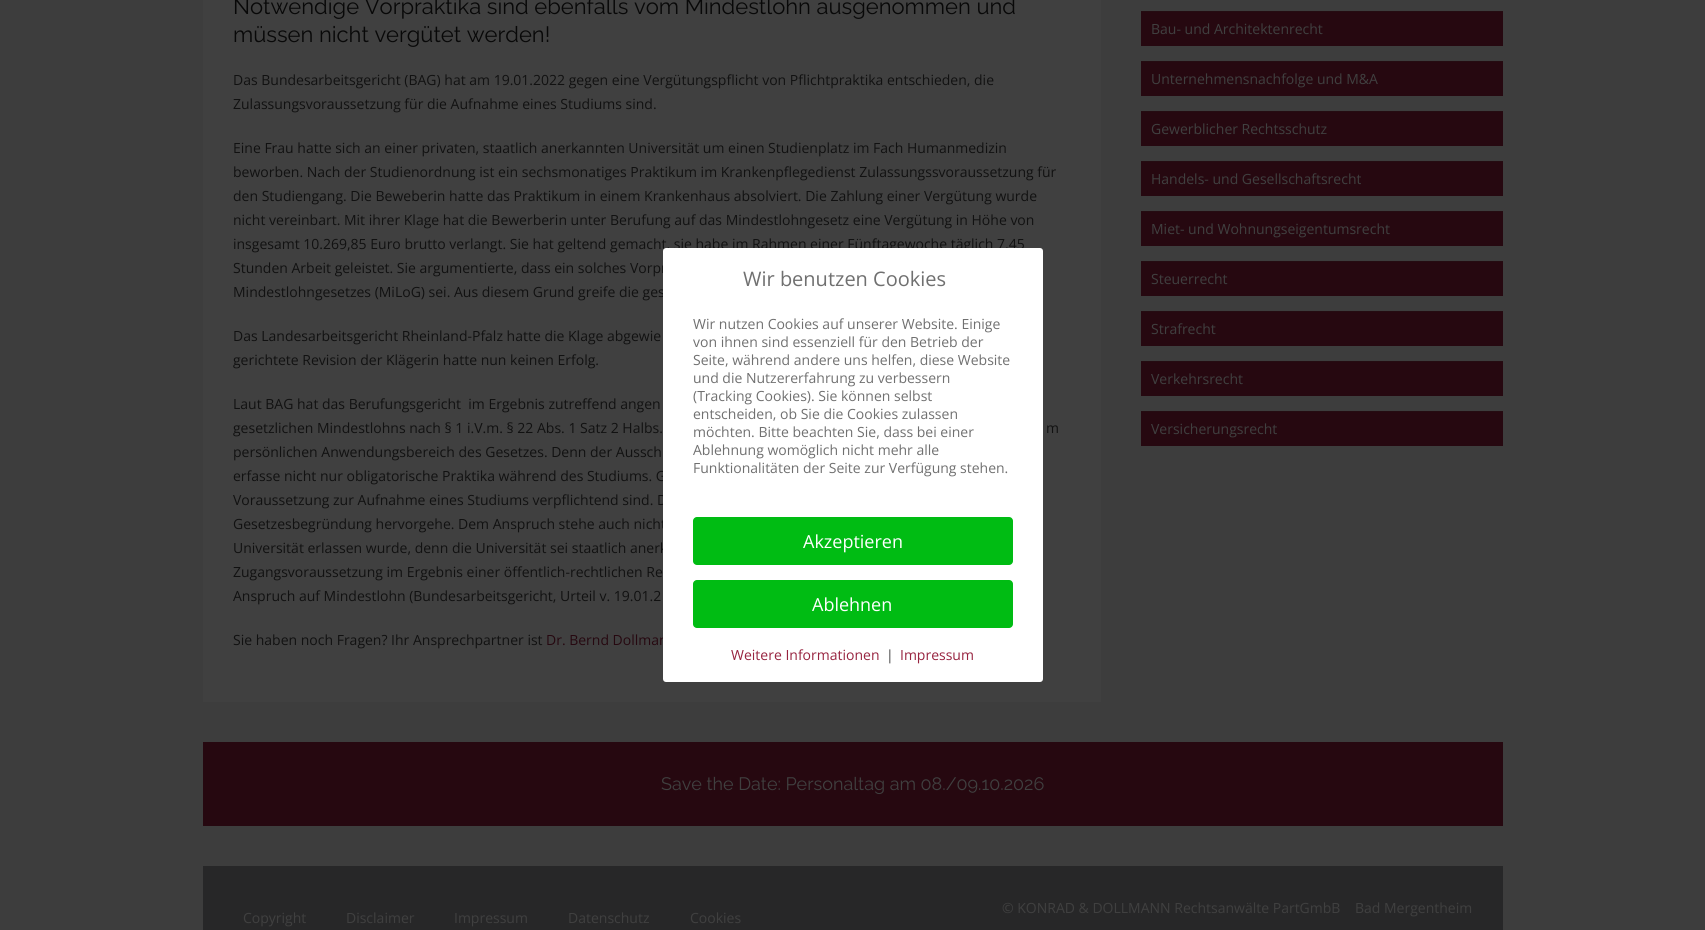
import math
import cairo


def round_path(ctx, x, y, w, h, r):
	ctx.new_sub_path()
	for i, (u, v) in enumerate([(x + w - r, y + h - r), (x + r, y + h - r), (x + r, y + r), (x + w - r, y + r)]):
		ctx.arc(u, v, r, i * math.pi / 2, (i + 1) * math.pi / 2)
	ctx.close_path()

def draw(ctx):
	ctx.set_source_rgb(0.239, 0.239, 0.239)
	ctx.paint()
	ctx.set_source_rgb(0.251, 0.251, 0.251)
	ctx.rectangle(203, 0, 898, 702)
	ctx.fill()
	ctx.select_font_face('Raleway')
	ctx.set_font_size(22)
	ctx.set_source_rgb(0.035, 0.035, 0.035)
	ctx.move_to(233, 14)
	ctx.show_text('Notwendige Vorpraktika sind ebenfalls vom Mindestlohn ausgenommen und')
	ctx.move_to(233, 42)
	ctx.show_text('müssen nicht vergütet werden!')
	ctx.select_font_face('Open Sans')
	ctx.set_font_size(14)
	ctx.set_source_rgb(0.067, 0.067, 0.067)
	for x, y, s in [
		(233, 85, 'Das Bundesarbeitsgericht (BAG) hat am 19.01.2022 gegen eine Vergütungspflicht von Pflichtpraktika entschieden, die'),
		(233, 109, 'Zulassungsvoraussetzung für die Aufnahme eines Studiums sind.'),
		(233, 153, 'Eine Frau hatte sich an einer privaten, staatlich anerkannten Universität um einen Studienplatz im Fach Humanmedizin'),
		(233, 177, 'beworben. Nach der Studienordnung ist ein sechsmonatiges Praktikum im Krankenpflegedienst Zulassungssvoraussetzung für'),
		(233, 201, 'den Studiengang. Die Beweberin hatte das Praktikum in einem Krankenhaus absolviert. Die Zahlung einer Vergütung wurde'),
		(233, 225, 'nicht vereinbart. Mit ihrer Klage hat die Bewerberin unter Berufung auf das Mindestlohngesetz eine Vergütung in Höhe von'),
		(233, 249, 'insgesamt 10.269,85 Euro brutto verlangt. Sie hat geltend gemacht, sie habe im Rahmen einer Fünftagewoche täglich 7,45'),
		(233, 273, 'Stunden Arbeit geleistet. Sie argumentierte, dass ein solches Vorpr'),
		(233, 297, 'Mindestlohngesetzes (MiLoG) sei. Aus diesem Grund greife die ges'),
		(233, 341, 'Das Landesarbeitsgericht Rheinland-Pfalz hatte die Klage abgewie'),
		(233, 365, 'gerichtete Revision der Klägerin hatte nun keinen Erfolg.'),
		(233, 409, 'Laut BAG hat das Berufungsgericht  im Ergebnis zutreffend angen'),
		(233, 433, 'gesetzlichen Mindestlohns nach § 1 i.V.m. § 22 Abs. 1 Satz 2 Halbs.'),
		(1046, 433, 'm'),
		(233, 457, 'persönlichen Anwendungsbereich des Gesetzes. Denn der Aussch'),
		(233, 481, 'erfasse nicht nur obligatorische Praktika während des Studiums. G'),
		(233, 505, 'Voraussetzung zur Aufnahme eines Studiums verpflichtend sind. D'),
		(233, 529, 'Gesetzesbegründung hervorgehe. Dem Anspruch stehe auch nicht'),
		(233, 553, 'Universität erlassen wurde, denn die Universität sei staatlich anerk'),
		(233, 577, 'Zugangsvoraussetzung im Ergebnis einer öffentlich-rechtlichen Re'),
		(233, 601, 'Anspruch auf Mindestlohn (Bundesarbeitsgericht, Urteil v. 19.01.2'),
		(233, 645, 'Sie haben noch Fragen? Ihr Ansprechpartner ist'),
	]:
		ctx.move_to(x, y)
		ctx.show_text(s)
	ctx.set_source_rgb(0.149, 0.035, 0.063)
	ctx.move_to(546, 645)
	ctx.show_text('Dr. Bernd Dollman')
	ctx.rectangle(1141, 12, 362, 34)
	ctx.fill()
	ctx.set_source_rgb(0.145, 0.047, 0.071)
	ctx.rectangle(1141, 11, 362, 1)
	ctx.fill()
	ctx.set_source_rgb(0.251, 0.251, 0.251)
	ctx.move_to(1151, 34)
	ctx.show_text('Bau- und Architektenrecht')
	ctx.set_source_rgb(0.149, 0.035, 0.063)
	ctx.rectangle(1141, 62, 362, 34)
	ctx.fill()
	ctx.set_source_rgb(0.145, 0.047, 0.071)
	ctx.rectangle(1141, 61, 362, 1)
	ctx.fill()
	ctx.set_source_rgb(0.251, 0.251, 0.251)
	ctx.move_to(1151, 84)
	ctx.show_text('Unternehmensnachfolge und M&A')
	ctx.set_source_rgb(0.149, 0.035, 0.063)
	ctx.rectangle(1141, 112, 362, 34)
	ctx.fill()
	ctx.set_source_rgb(0.145, 0.047, 0.071)
	ctx.rectangle(1141, 111, 362, 1)
	ctx.fill()
	ctx.set_source_rgb(0.251, 0.251, 0.251)
	ctx.move_to(1151, 134)
	ctx.show_text('Gewerblicher Rechtsschutz')
	ctx.set_source_rgb(0.149, 0.035, 0.063)
	ctx.rectangle(1141, 162, 362, 34)
	ctx.fill()
	ctx.set_source_rgb(0.145, 0.047, 0.071)
	ctx.rectangle(1141, 161, 362, 1)
	ctx.fill()
	ctx.set_source_rgb(0.251, 0.251, 0.251)
	ctx.move_to(1151, 184)
	ctx.show_text('Handels- und Gesellschaftsrecht')
	ctx.set_source_rgb(0.149, 0.035, 0.063)
	ctx.rectangle(1141, 212, 362, 34)
	ctx.fill()
	ctx.set_source_rgb(0.145, 0.047, 0.071)
	ctx.rectangle(1141, 211, 362, 1)
	ctx.fill()
	ctx.set_source_rgb(0.251, 0.251, 0.251)
	ctx.move_to(1151, 234)
	ctx.show_text('Miet- und Wohnungseigentumsrecht')
	ctx.set_source_rgb(0.149, 0.035, 0.063)
	ctx.rectangle(1141, 262, 362, 34)
	ctx.fill()
	ctx.set_source_rgb(0.145, 0.047, 0.071)
	ctx.rectangle(1141, 261, 362, 1)
	ctx.fill()
	ctx.set_source_rgb(0.251, 0.251, 0.251)
	ctx.move_to(1151, 284)
	ctx.show_text('Steuerrecht')
	ctx.set_source_rgb(0.149, 0.035, 0.063)
	ctx.rectangle(1141, 312, 362, 34)
	ctx.fill()
	ctx.set_source_rgb(0.145, 0.047, 0.071)
	ctx.rectangle(1141, 311, 362, 1)
	ctx.fill()
	ctx.set_source_rgb(0.251, 0.251, 0.251)
	ctx.move_to(1151, 334)
	ctx.show_text('Strafrecht')
	ctx.set_source_rgb(0.149, 0.035, 0.063)
	ctx.rectangle(1141, 362, 362, 34)
	ctx.fill()
	ctx.set_source_rgb(0.145, 0.047, 0.071)
	ctx.rectangle(1141, 361, 362, 1)
	ctx.fill()
	ctx.set_source_rgb(0.251, 0.251, 0.251)
	ctx.move_to(1151, 384)
	ctx.show_text('Verkehrsrecht')
	ctx.set_source_rgb(0.149, 0.035, 0.063)
	ctx.rectangle(1141, 412, 362, 34)
	ctx.fill()
	ctx.set_source_rgb(0.145, 0.047, 0.071)
	ctx.rectangle(1141, 411, 362, 1)
	ctx.fill()
	ctx.set_source_rgb(0.251, 0.251, 0.251)
	ctx.move_to(1151, 434)
	ctx.show_text('Versicherungsrecht')
	ctx.set_source_rgb(0.149, 0.035, 0.063)
	ctx.rectangle(203, 742, 1300, 84)
	ctx.fill()
	ctx.select_font_face('Raleway')
	ctx.set_font_size(18)
	ctx.set_source_rgb(0.251, 0.251, 0.251)
	ctx.move_to(661, 790)
	ctx.show_text('Save the Date: Personaltag am 08./09.10.2026')
	ctx.set_source_rgb(0.153, 0.153, 0.157)
	ctx.rectangle(203, 866, 1300, 64)
	ctx.fill()
	ctx.select_font_face('Open Sans')
	ctx.set_font_size(14)
	ctx.set_source_rgb(0.251, 0.251, 0.251)
	for x, y, s in [
		(1002, 913, '© KONRAD & DOLLMANN Rechtsanwälte PartGmbB'),
		(1355, 913, 'Bad Mergentheim'),
		(243, 923, 'Copyright'),
		(346, 923, 'Disclaimer'),
		(454, 923, 'Impressum'),
		(568, 923, 'Datenschutz'),
		(690, 923, 'Cookies'),
	]:
		ctx.move_to(x, y)
		ctx.show_text(s)
	ctx.set_source_rgb(1, 1, 1)
	round_path(ctx, 663, 248, 380, 434, 3)
	ctx.fill()
	ctx.set_font_size(20)
	ctx.set_source_rgb(0.439, 0.439, 0.439)
	ctx.move_to(743, 286)
	ctx.show_text('Wir benutzen Cookies')
	ctx.set_font_size(14)
	for x, y, s in [
		(693, 329, 'Wir nutzen Cookies auf unserer Website. Einige'),
		(693, 347, 'von ihnen sind essenziell für den Betrieb der'),
		(693, 365, 'Seite, während andere uns helfen, diese Website'),
		(693, 383, 'und die Nutzererfahrung zu verbessern'),
		(693, 401, '(Tracking Cookies). Sie können selbst'),
		(693, 419, 'entscheiden, ob Sie die Cookies zulassen'),
		(693, 437, 'möchten. Bitte beachten Sie, dass bei einer'),
		(693, 455, 'Ablehnung womöglich nicht mehr alle'),
		(693, 473, 'Funktionalitäten der Seite zur Verfügung stehen.'),
	]:
		ctx.move_to(x, y)
		ctx.show_text(s)
	ctx.set_source_rgb(0, 0.737, 0.075)
	round_path(ctx, 693, 517, 320, 48, 4)
	ctx.fill()
	ctx.set_font_size(18)
	ctx.set_source_rgb(1, 1, 1)
	ctx.move_to(803, 548)
	ctx.show_text('Akzeptieren')
	ctx.set_source_rgb(0, 0.737, 0.075)
	round_path(ctx, 693, 580, 320, 48, 4)
	ctx.fill()
	ctx.set_source_rgb(1, 1, 1)
	ctx.move_to(812, 611)
	ctx.show_text('Ablehnen')
	ctx.set_font_size(14)
	ctx.set_source_rgb(0.592, 0.137, 0.247)
	ctx.move_to(731, 660)
	ctx.show_text('Weitere Informationen')
	ctx.set_source_rgb(0.251, 0.251, 0.251)
	ctx.move_to(886, 660)
	ctx.show_text('|')
	ctx.set_source_rgb(0.592, 0.137, 0.247)
	ctx.move_to(900, 660)
	ctx.show_text('Impressum')


surface = cairo.ImageSurface(cairo.FORMAT_RGB24, 1705, 930)
ctx = cairo.Context(surface)
options = cairo.FontOptions()
options.set_hint_metrics(cairo.HINT_METRICS_OFF)
options.set_hint_style(cairo.HINT_STYLE_NONE)
ctx.set_font_options(options)
ctx.set_miter_limit(4)
draw(ctx)
surface.write_to_png('image.png')
